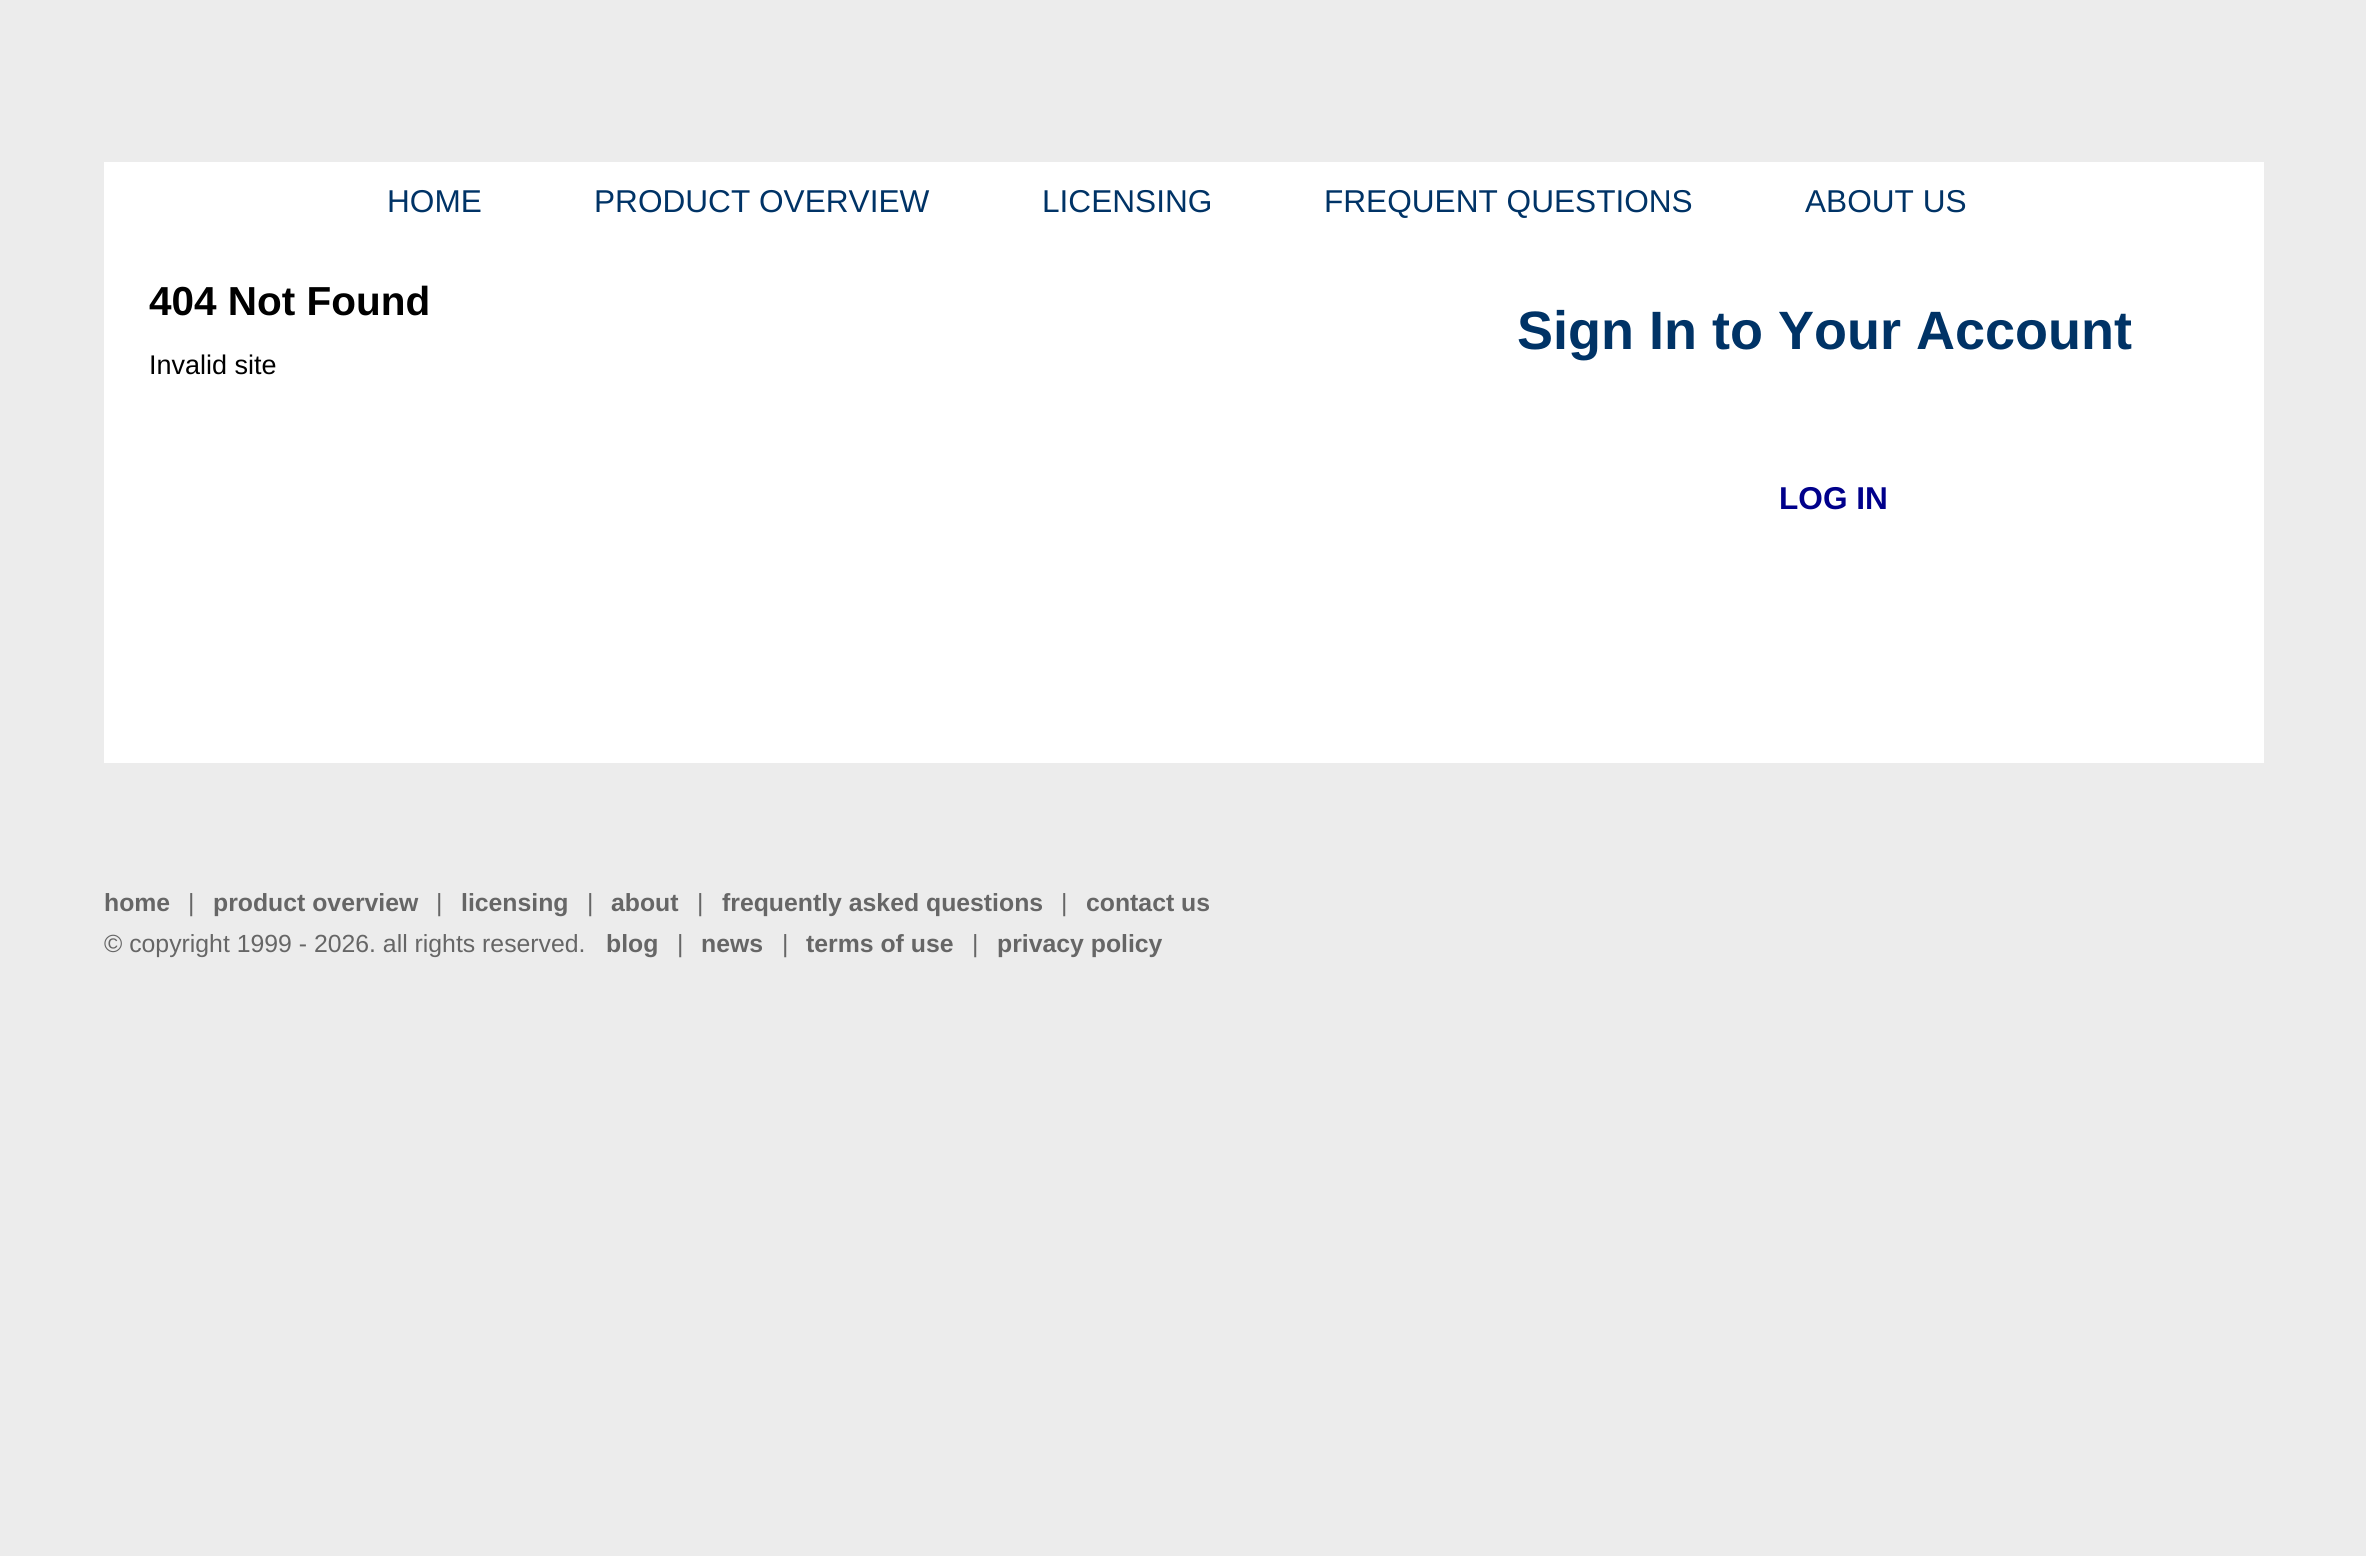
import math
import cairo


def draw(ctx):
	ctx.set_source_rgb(0.925, 0.925, 0.925)
	ctx.paint()
	ctx.set_source_rgb(1, 1, 1)
	ctx.rectangle(104, 162, 2160, 601)
	ctx.fill()
	ctx.select_font_face('Liberation Sans')
	ctx.set_font_size(31.6)
	ctx.set_source_rgb(0, 0.2, 0.4)
	for x, y, s in [
		(387, 212, 'HOME'),
		(594, 212, 'PRODUCT OVERVIEW'),
		(1042, 212, 'LICENSING'),
		(1324, 212, 'FREQUENT QUESTIONS'),
		(1805, 212, 'ABOUT US'),
	]:
		ctx.move_to(x, y)
		ctx.show_text(s)
	ctx.select_font_face('Liberation Sans', cairo.FONT_SLANT_NORMAL, cairo.FONT_WEIGHT_BOLD)
	ctx.set_font_size(40.5)
	ctx.set_source_rgb(0, 0, 0)
	ctx.move_to(149, 315)
	ctx.show_text('404 Not Found')
	ctx.select_font_face('Liberation Sans')
	ctx.set_font_size(27)
	ctx.move_to(149, 374)
	ctx.show_text('Invalid site')
	ctx.select_font_face('Liberation Sans', cairo.FONT_SLANT_NORMAL, cairo.FONT_WEIGHT_BOLD)
	ctx.set_font_size(54)
	ctx.set_source_rgb(0, 0.2, 0.4)
	ctx.move_to(1517, 349)
	ctx.show_text('Sign In to Your Account')
	ctx.set_font_size(31.6)
	ctx.set_source_rgb(0, 0, 0.545)
	ctx.move_to(1779, 509)
	ctx.show_text('LOG IN')
	ctx.set_font_size(24.8)
	ctx.set_source_rgb(0.4, 0.4, 0.4)
	ctx.move_to(104, 911)
	ctx.show_text('home')
	ctx.select_font_face('Liberation Sans')
	ctx.move_to(188, 911)
	ctx.show_text('|')
	ctx.select_font_face('Liberation Sans', cairo.FONT_SLANT_NORMAL, cairo.FONT_WEIGHT_BOLD)
	ctx.move_to(213, 911)
	ctx.show_text('product overview')
	ctx.select_font_face('Liberation Sans')
	ctx.move_to(436, 911)
	ctx.show_text('|')
	ctx.select_font_face('Liberation Sans', cairo.FONT_SLANT_NORMAL, cairo.FONT_WEIGHT_BOLD)
	ctx.move_to(461, 911)
	ctx.show_text('licensing')
	ctx.select_font_face('Liberation Sans')
	ctx.move_to(587, 911)
	ctx.show_text('|')
	ctx.select_font_face('Liberation Sans', cairo.FONT_SLANT_NORMAL, cairo.FONT_WEIGHT_BOLD)
	ctx.move_to(611, 911)
	ctx.show_text('about')
	ctx.select_font_face('Liberation Sans')
	ctx.move_to(697, 911)
	ctx.show_text('|')
	ctx.select_font_face('Liberation Sans', cairo.FONT_SLANT_NORMAL, cairo.FONT_WEIGHT_BOLD)
	ctx.move_to(722, 911)
	ctx.show_text('frequently asked questions')
	ctx.select_font_face('Liberation Sans')
	ctx.move_to(1061, 911)
	ctx.show_text('|')
	ctx.select_font_face('Liberation Sans', cairo.FONT_SLANT_NORMAL, cairo.FONT_WEIGHT_BOLD)
	ctx.move_to(1086, 911)
	ctx.show_text('contact us')
	ctx.select_font_face('Liberation Sans')
	ctx.move_to(104, 952)
	ctx.show_text('© copyright 1999 - 2026. all rights reserved.')
	ctx.select_font_face('Liberation Sans', cairo.FONT_SLANT_NORMAL, cairo.FONT_WEIGHT_BOLD)
	ctx.move_to(606, 952)
	ctx.show_text('blog')
	ctx.select_font_face('Liberation Sans')
	ctx.move_to(677, 952)
	ctx.show_text('|')
	ctx.select_font_face('Liberation Sans', cairo.FONT_SLANT_NORMAL, cairo.FONT_WEIGHT_BOLD)
	ctx.move_to(701, 952)
	ctx.show_text('news')
	ctx.select_font_face('Liberation Sans')
	ctx.move_to(782, 952)
	ctx.show_text('|')
	ctx.select_font_face('Liberation Sans', cairo.FONT_SLANT_NORMAL, cairo.FONT_WEIGHT_BOLD)
	ctx.move_to(806, 952)
	ctx.show_text('terms of use')
	ctx.select_font_face('Liberation Sans')
	ctx.move_to(972, 952)
	ctx.show_text('|')
	ctx.select_font_face('Liberation Sans', cairo.FONT_SLANT_NORMAL, cairo.FONT_WEIGHT_BOLD)
	ctx.move_to(997, 952)
	ctx.show_text('privacy policy')


surface = cairo.ImageSurface(cairo.FORMAT_RGB24, 2366, 1556)
ctx = cairo.Context(surface)
options = cairo.FontOptions()
options.set_hint_metrics(cairo.HINT_METRICS_OFF)
options.set_hint_style(cairo.HINT_STYLE_NONE)
ctx.set_font_options(options)
ctx.set_miter_limit(4)
draw(ctx)
surface.write_to_png('image.png')
